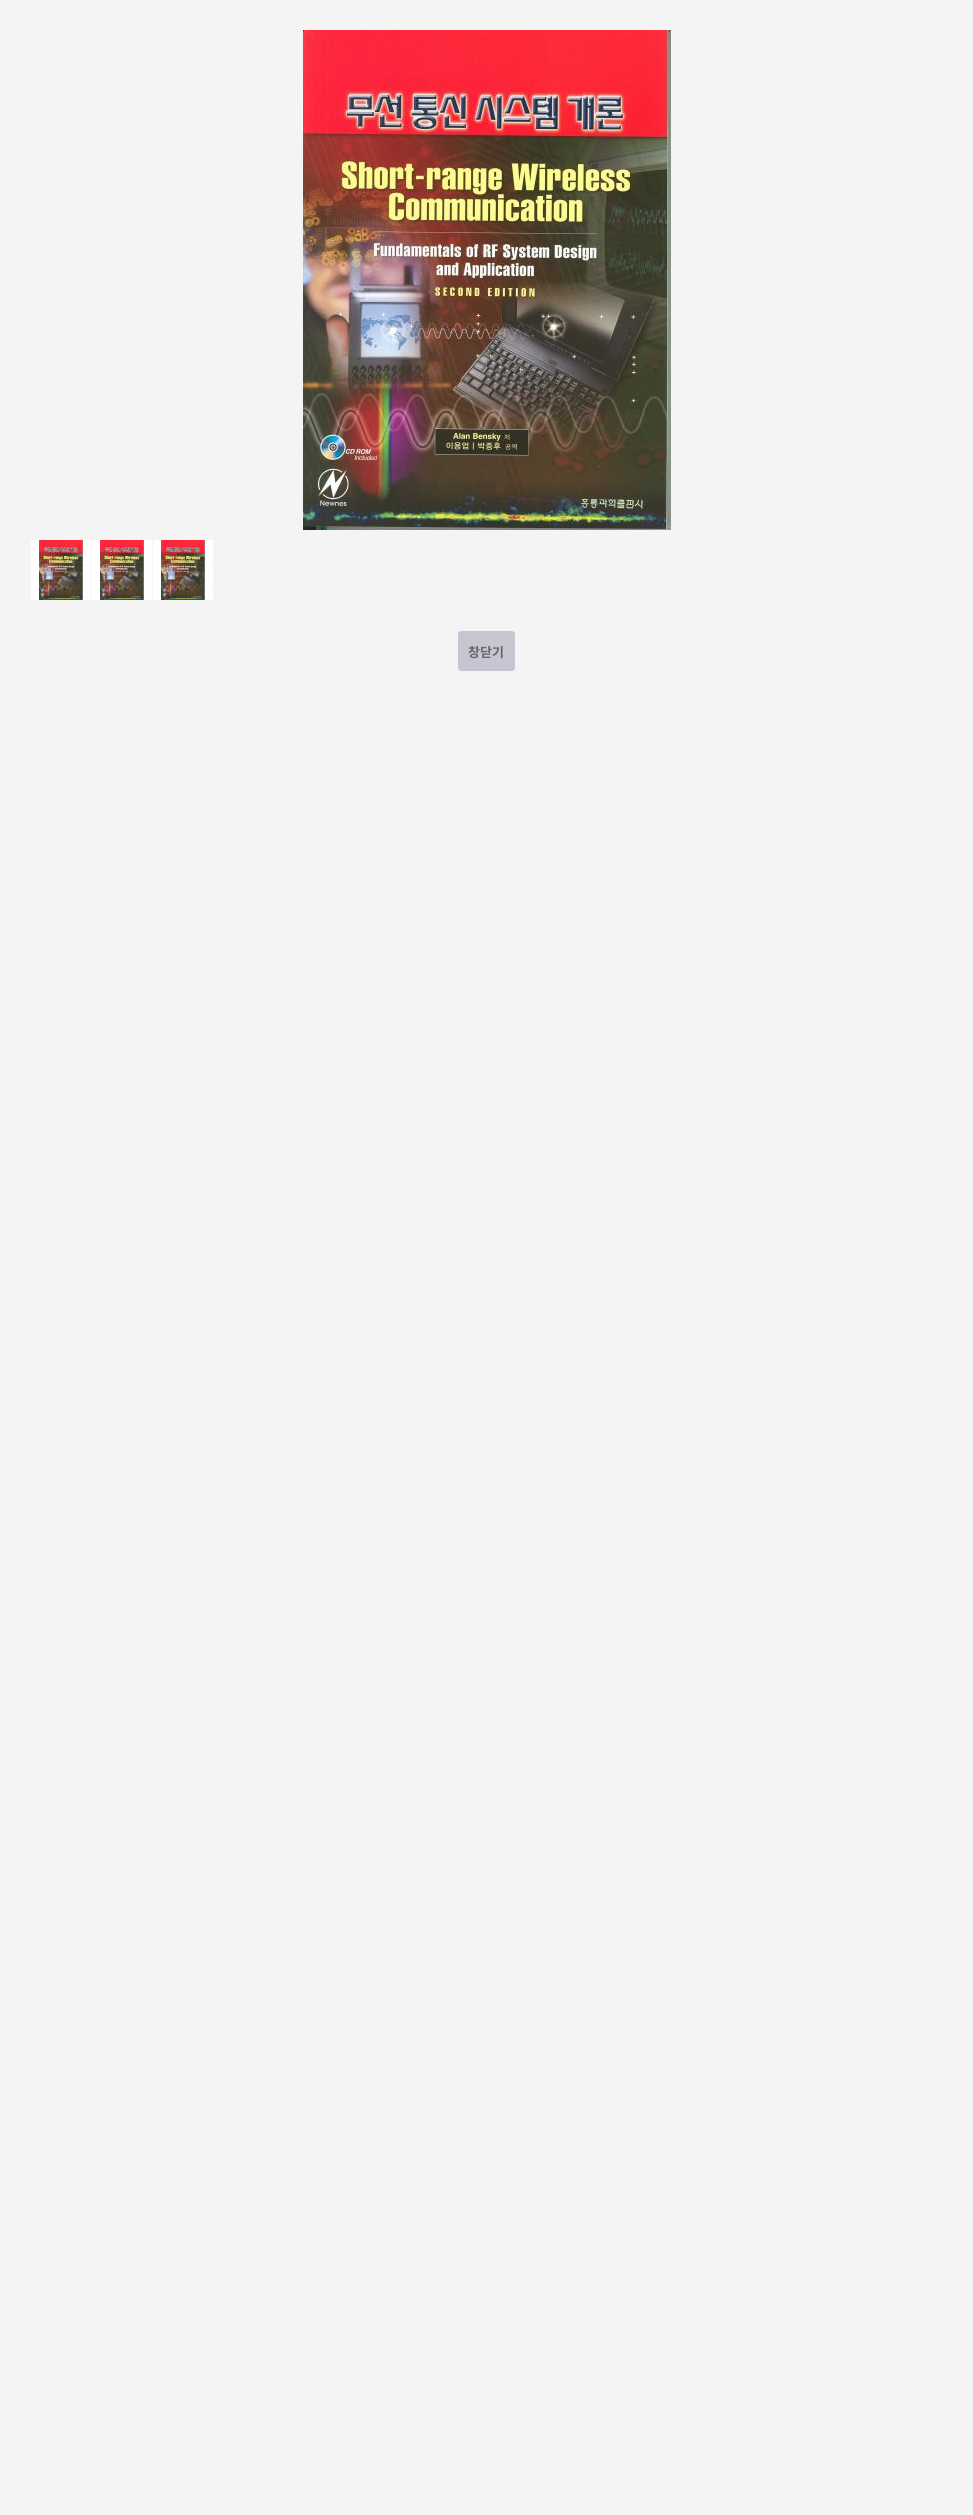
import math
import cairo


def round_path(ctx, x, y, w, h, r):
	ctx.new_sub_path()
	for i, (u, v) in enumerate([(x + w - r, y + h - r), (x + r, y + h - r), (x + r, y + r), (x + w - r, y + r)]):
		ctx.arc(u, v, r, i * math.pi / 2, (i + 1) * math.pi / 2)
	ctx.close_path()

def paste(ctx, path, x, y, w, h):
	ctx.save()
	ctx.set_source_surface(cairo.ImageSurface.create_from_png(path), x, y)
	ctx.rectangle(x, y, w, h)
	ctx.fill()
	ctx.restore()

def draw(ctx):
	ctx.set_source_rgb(0.957, 0.957, 0.957)
	ctx.paint()
	paste(ctx, 'media/1.png', 303, 30, 368, 500)
	paste(ctx, 'media/2.png', 31, 540, 60, 60)
	paste(ctx, 'media/2.png', 92, 540, 60, 60)
	paste(ctx, 'media/2.png', 153, 540, 60, 60)
	ctx.set_source_rgb(0.776, 0.776, 0.824)
	round_path(ctx, 458, 631, 57, 40, 3)
	ctx.fill()
	ctx.select_font_face('Noto Sans KR', cairo.FONT_SLANT_NORMAL, cairo.FONT_WEIGHT_BOLD)
	ctx.set_font_size(13)
	ctx.set_source_rgb(0.4, 0.4, 0.4)
	ctx.move_to(468, 657)
	ctx.show_text('창닫기')


surface = cairo.ImageSurface(cairo.FORMAT_RGB24, 973, 2515)
ctx = cairo.Context(surface)
options = cairo.FontOptions()
options.set_hint_metrics(cairo.HINT_METRICS_OFF)
options.set_hint_style(cairo.HINT_STYLE_NONE)
ctx.set_font_options(options)
ctx.set_miter_limit(4)
draw(ctx)
surface.write_to_png('image.png')
